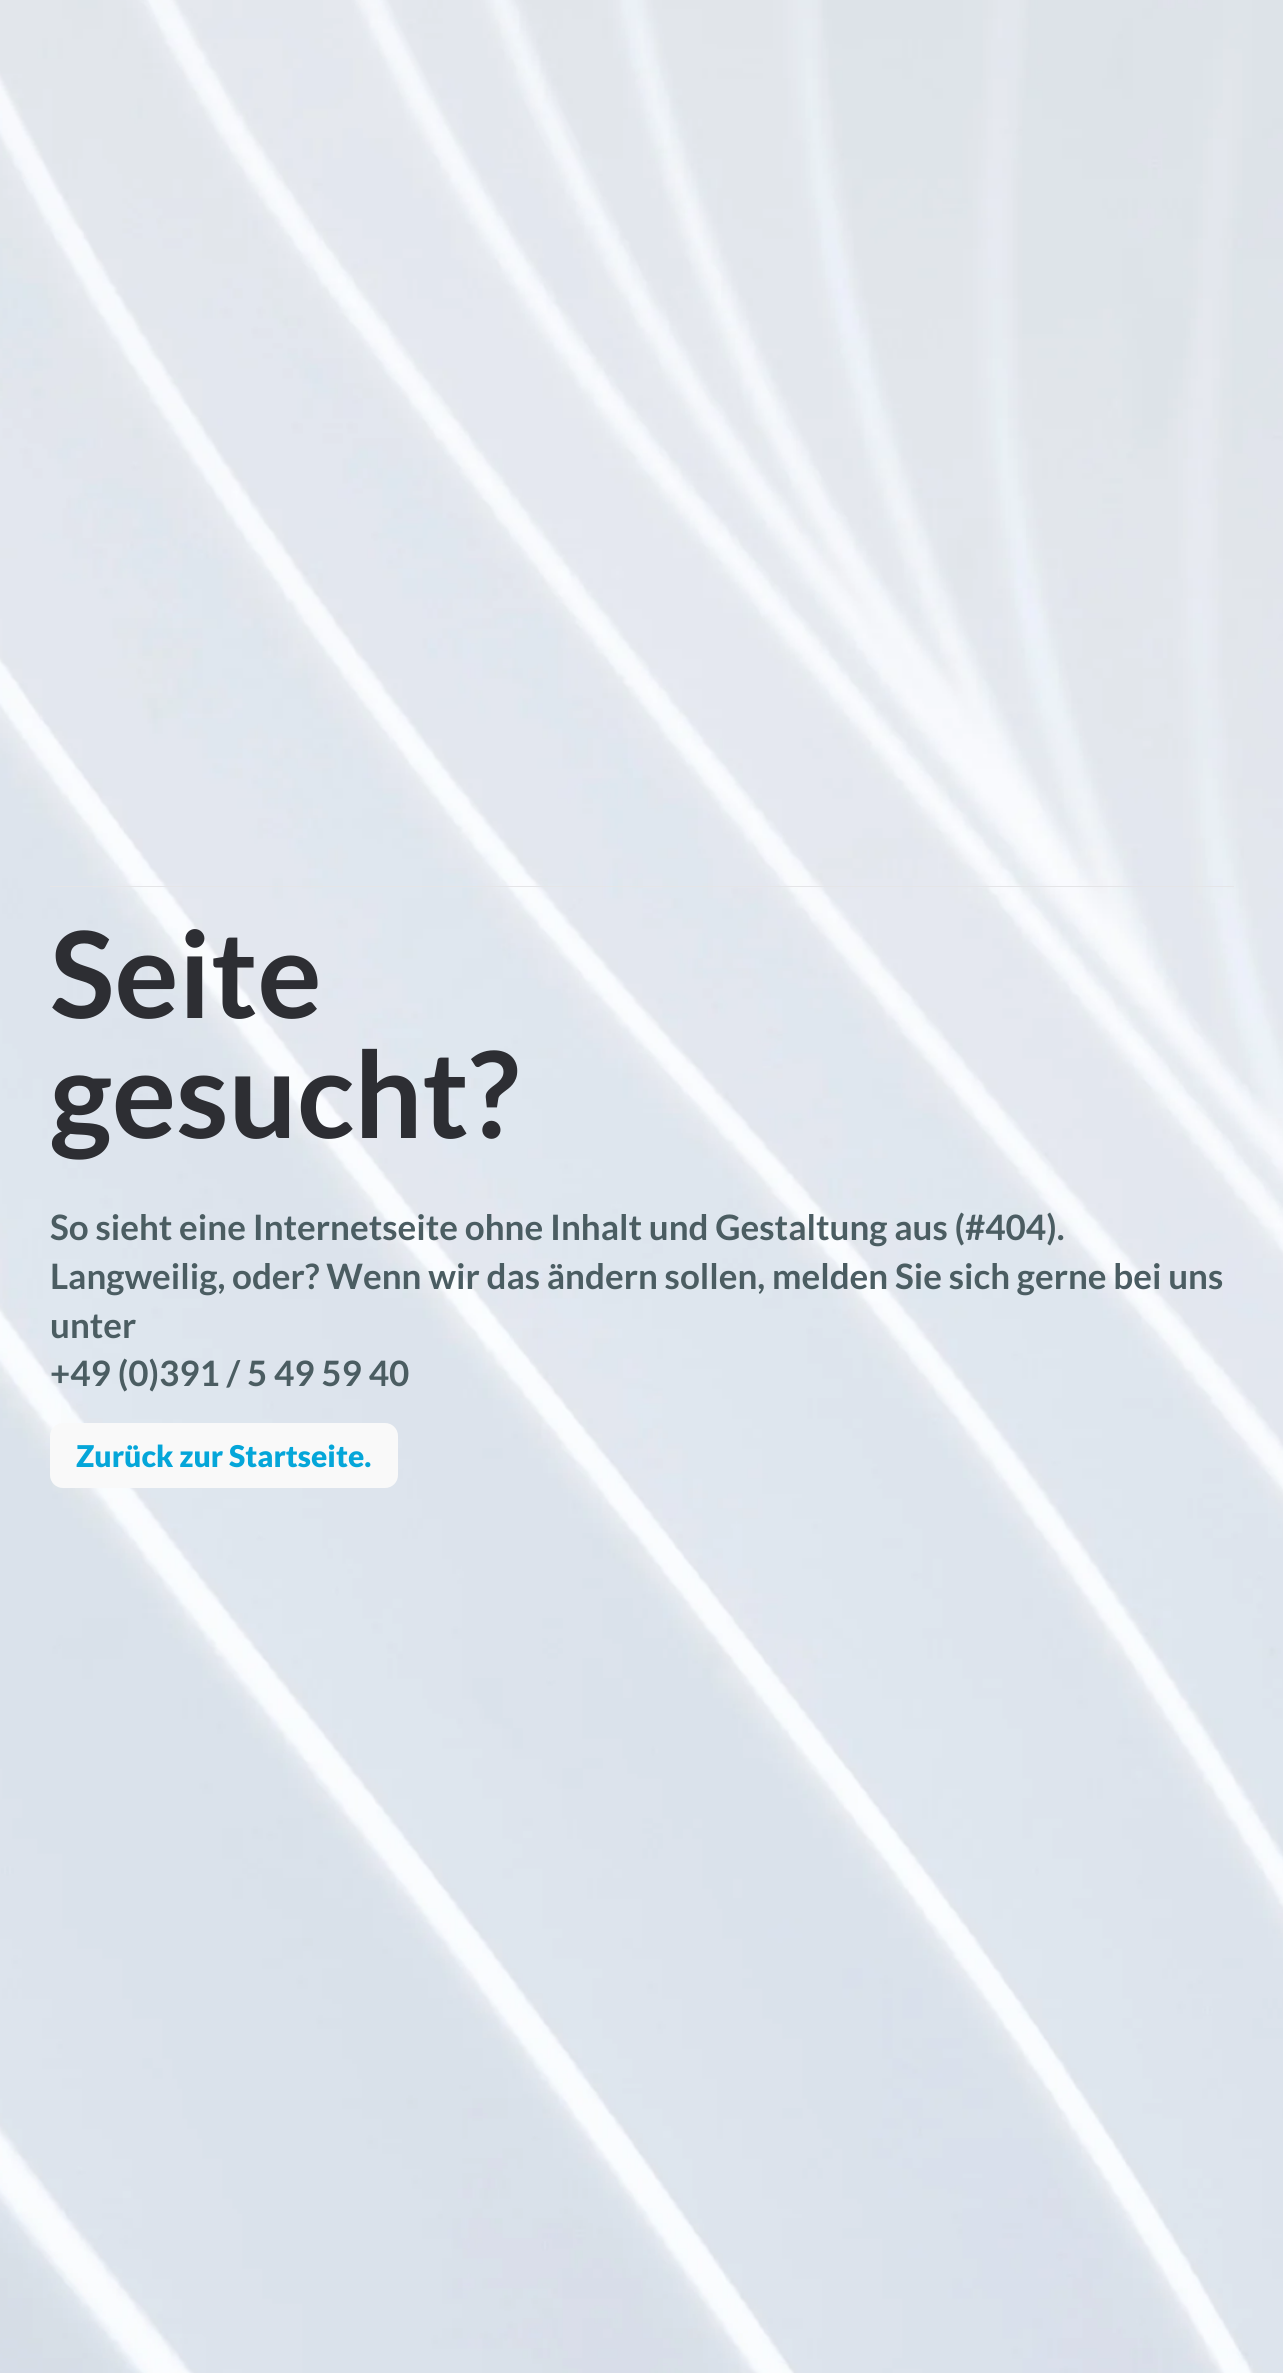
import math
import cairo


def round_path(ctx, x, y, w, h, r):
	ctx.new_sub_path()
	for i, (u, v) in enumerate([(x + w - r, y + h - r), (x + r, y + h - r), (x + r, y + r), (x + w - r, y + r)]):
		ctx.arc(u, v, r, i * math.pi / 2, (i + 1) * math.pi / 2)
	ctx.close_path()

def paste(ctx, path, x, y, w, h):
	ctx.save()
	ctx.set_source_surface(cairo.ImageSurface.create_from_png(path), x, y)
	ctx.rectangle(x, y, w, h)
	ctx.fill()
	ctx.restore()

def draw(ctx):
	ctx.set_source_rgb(1, 1, 1)
	ctx.paint()
	paste(ctx, 'media/1.png', 0, 0, 1283, 2373)
	ctx.set_source_rgb(0.898, 0.898, 0.906)
	ctx.rectangle(50, 886, 1184, 1)
	ctx.fill()
	ctx.select_font_face('Lato', cairo.FONT_SLANT_NORMAL, cairo.FONT_WEIGHT_BOLD)
	ctx.set_font_size(120)
	ctx.set_source_rgb(0.176, 0.18, 0.2)
	ctx.move_to(50, 1018)
	ctx.show_text('Seite')
	ctx.move_to(50, 1138)
	ctx.show_text('gesucht?')
	ctx.set_font_size(35)
	ctx.set_source_rgb(0.294, 0.365, 0.384)
	for x, y, s in [
		(50, 1240, 'So sieht eine Internetseite ohne Inhalt und Gestaltung aus (#404).'),
		(50, 1289, 'Langweilig, oder? Wenn wir das ändern sollen, melden Sie sich gerne bei uns'),
		(50, 1338, 'unter'),
		(50, 1386, '+49 (0)391 / 5 49 59 40'),
	]:
		ctx.move_to(x, y)
		ctx.show_text(s)
	ctx.set_source_rgb(0.976, 0.976, 0.976)
	round_path(ctx, 50, 1423, 348, 65, 13)
	ctx.fill()
	ctx.select_font_face('Lato Black')
	ctx.set_font_size(30)
	ctx.set_source_rgb(0.02, 0.651, 0.851)
	ctx.move_to(76, 1467)
	ctx.show_text('Zurück zur Startseite.')


surface = cairo.ImageSurface(cairo.FORMAT_RGB24, 1283, 2373)
ctx = cairo.Context(surface)
options = cairo.FontOptions()
options.set_hint_metrics(cairo.HINT_METRICS_OFF)
options.set_hint_style(cairo.HINT_STYLE_NONE)
ctx.set_font_options(options)
ctx.set_miter_limit(4)
draw(ctx)
surface.write_to_png('image.png')
